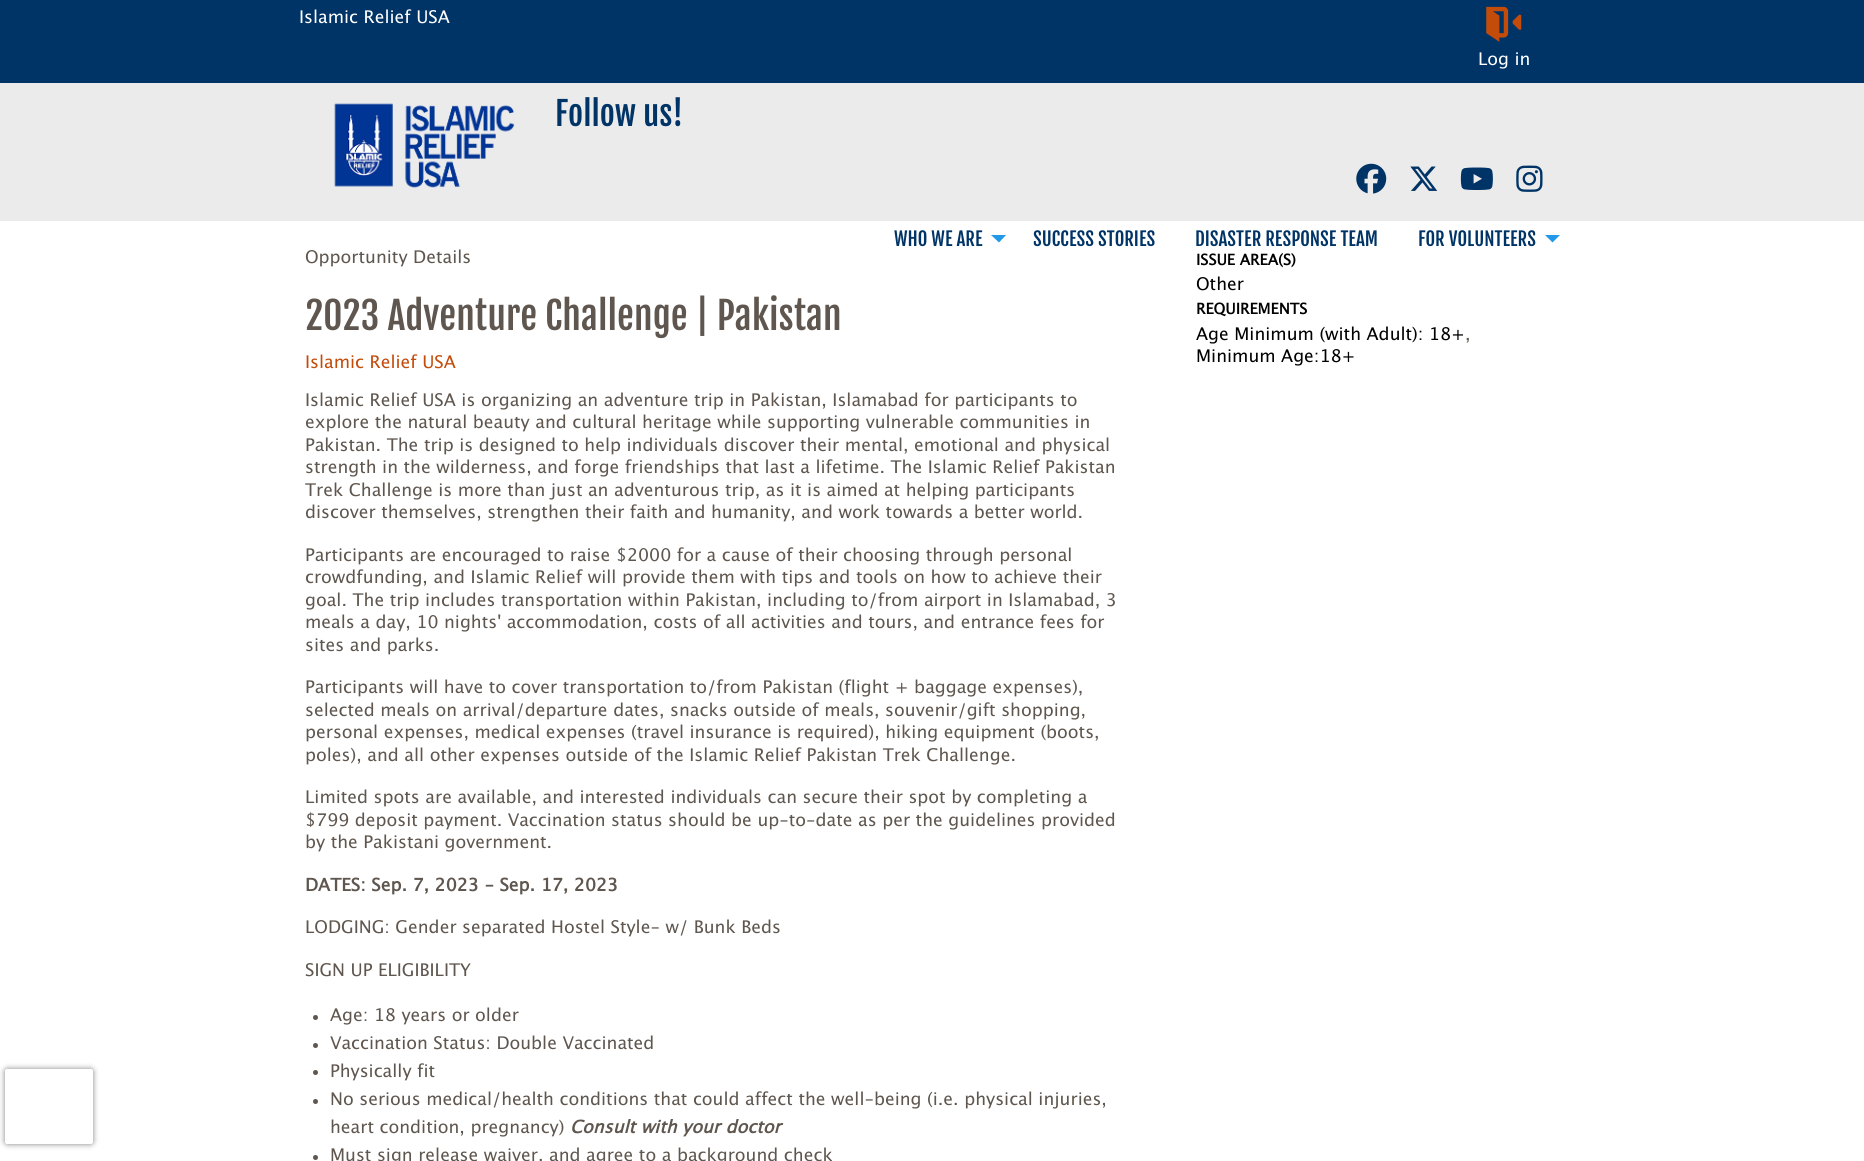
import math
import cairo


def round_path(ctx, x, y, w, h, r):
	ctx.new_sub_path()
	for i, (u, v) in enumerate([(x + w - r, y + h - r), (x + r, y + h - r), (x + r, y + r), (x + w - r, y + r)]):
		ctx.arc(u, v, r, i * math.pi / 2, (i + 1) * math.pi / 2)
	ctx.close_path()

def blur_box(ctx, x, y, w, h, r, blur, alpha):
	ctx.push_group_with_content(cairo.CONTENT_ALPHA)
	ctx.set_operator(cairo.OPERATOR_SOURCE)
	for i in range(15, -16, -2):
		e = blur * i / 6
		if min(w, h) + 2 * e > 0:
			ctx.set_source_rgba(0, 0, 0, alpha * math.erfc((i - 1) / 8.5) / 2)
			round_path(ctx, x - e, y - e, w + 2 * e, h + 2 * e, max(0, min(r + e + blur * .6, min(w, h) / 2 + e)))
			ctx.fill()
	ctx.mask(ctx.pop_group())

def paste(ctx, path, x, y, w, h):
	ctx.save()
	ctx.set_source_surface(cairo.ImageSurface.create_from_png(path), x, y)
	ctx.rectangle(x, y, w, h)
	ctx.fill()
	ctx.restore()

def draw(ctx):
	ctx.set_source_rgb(1, 1, 1)
	ctx.paint()
	ctx.save()
	ctx.set_fill_rule(cairo.FILL_RULE_EVEN_ODD)
	ctx.new_path()
	ctx.move_to(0, 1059)
	ctx.line_to(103, 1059)
	ctx.line_to(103, 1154)
	ctx.line_to(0, 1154)
	ctx.close_path()
	ctx.move_to(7.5, 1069)
	ctx.line_to(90.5, 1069)
	ctx.curve_to(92, 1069, 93, 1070, 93, 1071.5)
	ctx.line_to(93, 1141.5)
	ctx.curve_to(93, 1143, 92, 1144, 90.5, 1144)
	ctx.line_to(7.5, 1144)
	ctx.curve_to(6, 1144, 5, 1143, 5, 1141.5)
	ctx.line_to(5, 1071.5)
	ctx.curve_to(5, 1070, 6, 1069, 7.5, 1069)
	ctx.close_path()
	ctx.clip()
	ctx.set_source_rgb(0.502, 0.502, 0.502)
	blur_box(ctx, 5, 1069, 88, 75, 2.5, 3, 1)
	ctx.restore()
	ctx.set_source_rgb(0, 0.2, 0.4)
	ctx.rectangle(0, 0, 1864, 83)
	ctx.fill()
	ctx.select_font_face('Lucida Grande')
	ctx.set_font_size(17.5)
	ctx.set_source_rgb(1, 1, 1)
	ctx.move_to(299, 23)
	ctx.show_text('Islamic Relief USA')
	paste(ctx, 'media/1.png', 1486, 6, 36, 36)
	ctx.move_to(1478, 65)
	ctx.show_text('Log in')
	ctx.set_source_rgb(0.918, 0.918, 0.918)
	ctx.rectangle(0, 83, 1864, 138)
	ctx.fill()
	paste(ctx, 'media/2.png', 334, 103, 181, 85)
	ctx.select_font_face('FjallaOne')
	ctx.set_font_size(32.5)
	ctx.set_source_rgb(0, 0.2, 0.4)
	ctx.move_to(555, 126)
	ctx.show_text('Follow us!')
	paste(ctx, 'media/3.png', 1356, 163, 31, 31)
	paste(ctx, 'media/4.png', 1410, 166, 28, 25)
	paste(ctx, 'media/5.png', 1460, 167, 33, 23)
	paste(ctx, 'media/6.png', 1516, 165, 27, 27)
	ctx.set_font_size(18.75)
	ctx.move_to(894, 246)
	ctx.show_text('WHO WE ARE')
	ctx.set_source_rgb(0.129, 0.6, 0.91)
	ctx.new_path()
	ctx.move_to(991, 235)
	ctx.line_to(1006, 235)
	ctx.line_to(999, 242.5)
	ctx.close_path()
	ctx.fill()
	ctx.set_source_rgb(0, 0.2, 0.4)
	for x, y, s in [
		(1033, 246, 'SUCCESS STORIES'),
		(1195, 246, 'DISASTER RESPONSE TEAM'),
		(1418, 246, 'FOR VOLUNTEERS'),
	]:
		ctx.move_to(x, y)
		ctx.show_text(s)
	ctx.set_source_rgb(0.129, 0.6, 0.91)
	ctx.new_path()
	ctx.move_to(1545, 235)
	ctx.line_to(1560, 235)
	ctx.line_to(1552.5, 242.5)
	ctx.close_path()
	ctx.fill()
	ctx.select_font_face('Lucida Grande')
	ctx.set_font_size(17.5)
	ctx.set_source_rgb(0.373, 0.341, 0.31)
	ctx.move_to(305, 263)
	ctx.show_text('Opportunity Details')
	ctx.select_font_face('FjallaOne')
	ctx.set_font_size(37.5)
	ctx.move_to(305, 330)
	ctx.show_text('2023 Adventure Challenge | Pakistan')
	ctx.select_font_face('Lucida Grande')
	ctx.set_font_size(17.5)
	ctx.set_source_rgb(0.769, 0.298, 0.043)
	ctx.move_to(305, 368)
	ctx.show_text('Islamic Relief USA')
	ctx.set_source_rgb(0.373, 0.341, 0.31)
	for x, y, s in [
		(305, 406, 'Islamic Relief USA is organizing an adventure trip in Pakistan, Islamabad for participants to'),
		(305, 428, 'explore the natural beauty and cultural heritage while supporting vulnerable communities in'),
		(305, 451, 'Pakistan. The trip is designed to help individuals discover their mental, emotional and physical'),
		(305, 473, 'strength in the wilderness, and forge friendships that last a lifetime. The Islamic Relief Pakistan'),
		(305, 496, 'Trek Challenge is more than just an adventurous trip, as it is aimed at helping participants'),
		(305, 518, 'discover themselves, strengthen their faith and humanity, and work towards a better world.'),
		(305, 561, 'Participants are encouraged to raise $2000 for a cause of their choosing through personal'),
		(305, 583, 'crowdfunding, and Islamic Relief will provide them with tips and tools on how to achieve their'),
		(305, 606, 'goal. The trip includes transportation within Pakistan, including to/from airport in Islamabad, 3'),
		(305, 628, 'meals a day, 10 nights\' accommodation, costs of all activities and tours, and entrance fees for'),
		(305, 651, 'sites and parks.'),
		(305, 693, 'Participants will have to cover transportation to/from Pakistan (flight + baggage expenses),'),
		(305, 716, 'selected meals on arrival/departure dates, snacks outside of meals, souvenir/gift shopping,'),
		(305, 738, 'personal expenses, medical expenses (travel insurance is required), hiking equipment (boots,'),
		(305, 761, 'poles), and all other expenses outside of the Islamic Relief Pakistan Trek Challenge.'),
		(305, 803, 'Limited spots are available, and interested individuals can secure their spot by completing a'),
		(305, 826, '$799 deposit payment. Vaccination status should be up-to-date as per the guidelines provided'),
		(305, 848, 'by the Pakistani government.'),
	]:
		ctx.move_to(x, y)
		ctx.show_text(s)
	ctx.select_font_face('Lucida Grande', cairo.FONT_SLANT_NORMAL, cairo.FONT_WEIGHT_BOLD)
	ctx.move_to(305, 891)
	ctx.show_text('DATES: Sep. 7, 2023 - Sep. 17, 2023')
	ctx.select_font_face('Lucida Grande')
	ctx.move_to(305, 933)
	ctx.show_text('LODGING: Gender separated Hostel Style- w/ Bunk Beds')
	ctx.move_to(305, 976)
	ctx.show_text('SIGN UP ELIGIBILITY')
	ctx.new_path()
	ctx.arc(315.5, 1017.5, 2.5, 0, 2 * math.pi)
	ctx.fill()
	ctx.move_to(330, 1021)
	ctx.show_text('Age: 18 years or older')
	ctx.new_path()
	ctx.arc(315.5, 1045.5, 2.5, 0, 2 * math.pi)
	ctx.fill()
	ctx.move_to(330, 1049)
	ctx.show_text('Vaccination Status: Double Vaccinated')
	ctx.new_path()
	ctx.arc(315.5, 1072.5, 2.5, 0, 2 * math.pi)
	ctx.fill()
	ctx.move_to(330, 1077)
	ctx.show_text('Physically fit')
	ctx.new_path()
	ctx.arc(315.5, 1101.5, 2.5, 0, 2 * math.pi)
	ctx.fill()
	ctx.move_to(330, 1105)
	ctx.show_text('No serious medical/health conditions that could affect the well-being (i.e. physical injuries,')
	ctx.move_to(330, 1133)
	ctx.show_text('heart condition, pregnancy)')
	ctx.select_font_face('Lucida Grande', cairo.FONT_SLANT_ITALIC, cairo.FONT_WEIGHT_BOLD)
	ctx.move_to(570, 1133)
	ctx.show_text('Consult with your doctor')
	ctx.new_path()
	ctx.arc(315.5, 1157.5, 2.5, 0, 2 * math.pi)
	ctx.fill()
	ctx.select_font_face('Lucida Grande')
	ctx.move_to(330, 1161)
	ctx.show_text('Must sign release waiver, and agree to a background check')
	ctx.select_font_face('Lucida Grande', cairo.FONT_SLANT_NORMAL, cairo.FONT_WEIGHT_BOLD)
	ctx.set_font_size(15)
	ctx.set_source_rgb(0, 0, 0)
	ctx.move_to(1196, 265)
	ctx.show_text('ISSUE AREA(S)')
	ctx.select_font_face('Lucida Grande')
	ctx.set_font_size(17.5)
	ctx.move_to(1196, 290)
	ctx.show_text('Other')
	ctx.select_font_face('Lucida Grande', cairo.FONT_SLANT_NORMAL, cairo.FONT_WEIGHT_BOLD)
	ctx.set_font_size(15)
	ctx.move_to(1196, 314)
	ctx.show_text('REQUIREMENTS')
	ctx.select_font_face('Lucida Grande')
	ctx.set_font_size(17.5)
	ctx.move_to(1196, 340)
	ctx.show_text('Age Minimum (with Adult): 18+')
	ctx.set_source_rgb(0.373, 0.341, 0.31)
	ctx.move_to(1465, 340)
	ctx.show_text(',')
	ctx.set_source_rgb(0, 0, 0)
	ctx.move_to(1196, 362)
	ctx.show_text('Minimum Age:18+')


surface = cairo.ImageSurface(cairo.FORMAT_RGB24, 1864, 1161)
ctx = cairo.Context(surface)
options = cairo.FontOptions()
options.set_hint_metrics(cairo.HINT_METRICS_OFF)
options.set_hint_style(cairo.HINT_STYLE_NONE)
ctx.set_font_options(options)
ctx.set_miter_limit(4)
draw(ctx)
surface.write_to_png('image.png')
